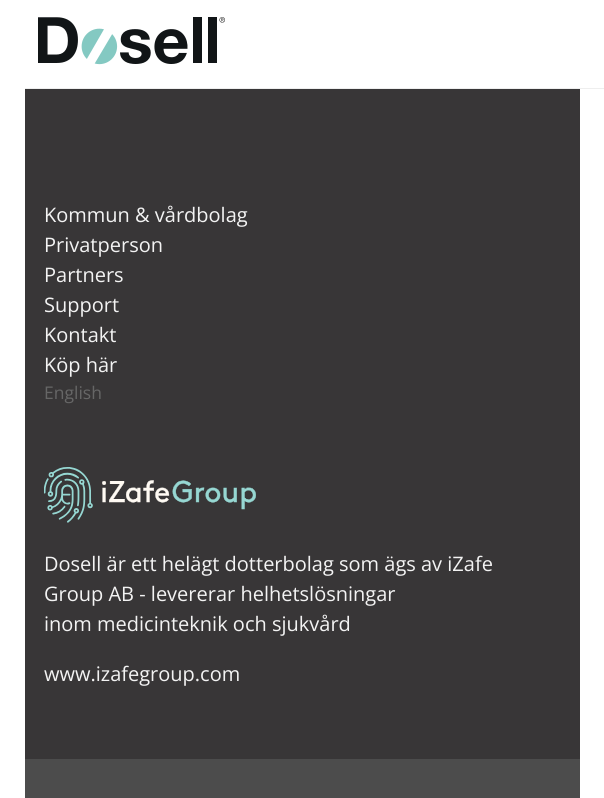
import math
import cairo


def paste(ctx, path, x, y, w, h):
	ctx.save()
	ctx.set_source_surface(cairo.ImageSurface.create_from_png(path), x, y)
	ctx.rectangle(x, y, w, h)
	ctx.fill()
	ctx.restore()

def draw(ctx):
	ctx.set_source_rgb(1, 1, 1)
	ctx.paint()
	ctx.set_source_rgb(0.933, 0.933, 0.933)
	ctx.rectangle(25, 88, 579, 1)
	ctx.fill()
	paste(ctx, 'media/1.png', 38, 17, 187, 48)
	ctx.set_source_rgb(0.22, 0.212, 0.216)
	ctx.rectangle(25, 89, 555, 670)
	ctx.fill()
	ctx.select_font_face('Open Sans')
	ctx.set_font_size(20)
	ctx.set_source_rgb(0.953, 0.953, 0.953)
	for x, y, s in [
		(44, 222, 'Kommun & vårdbolag'),
		(44, 252, 'Privatperson'),
		(44, 282, 'Partners'),
		(44, 312, 'Support'),
		(44, 342, 'Kontakt'),
		(44, 372, 'Köp här'),
	]:
		ctx.move_to(x, y)
		ctx.show_text(s)
	ctx.set_font_size(17.5)
	ctx.set_source_rgb(0.4, 0.4, 0.4)
	ctx.move_to(44, 399)
	ctx.show_text('English')
	paste(ctx, 'media/2.png', 44, 467, 212, 56)
	ctx.set_font_size(20)
	ctx.set_source_rgb(0.953, 0.953, 0.953)
	for x, y, s in [
		(44, 571, 'Dosell är ett helägt dotterbolag som ägs av iZafe'),
		(44, 601, 'Group AB - levererar helhetslösningar'),
		(44, 631, 'inom medicinteknik och sjukvård'),
		(44, 681, 'www.izafegroup.com'),
	]:
		ctx.move_to(x, y)
		ctx.show_text(s)
	ctx.set_source_rgb(0.298, 0.298, 0.298)
	ctx.rectangle(25, 759, 555, 39)
	ctx.fill()


surface = cairo.ImageSurface(cairo.FORMAT_RGB24, 604, 798)
ctx = cairo.Context(surface)
options = cairo.FontOptions()
options.set_hint_metrics(cairo.HINT_METRICS_OFF)
options.set_hint_style(cairo.HINT_STYLE_NONE)
ctx.set_font_options(options)
ctx.set_miter_limit(4)
draw(ctx)
surface.write_to_png('image.png')
